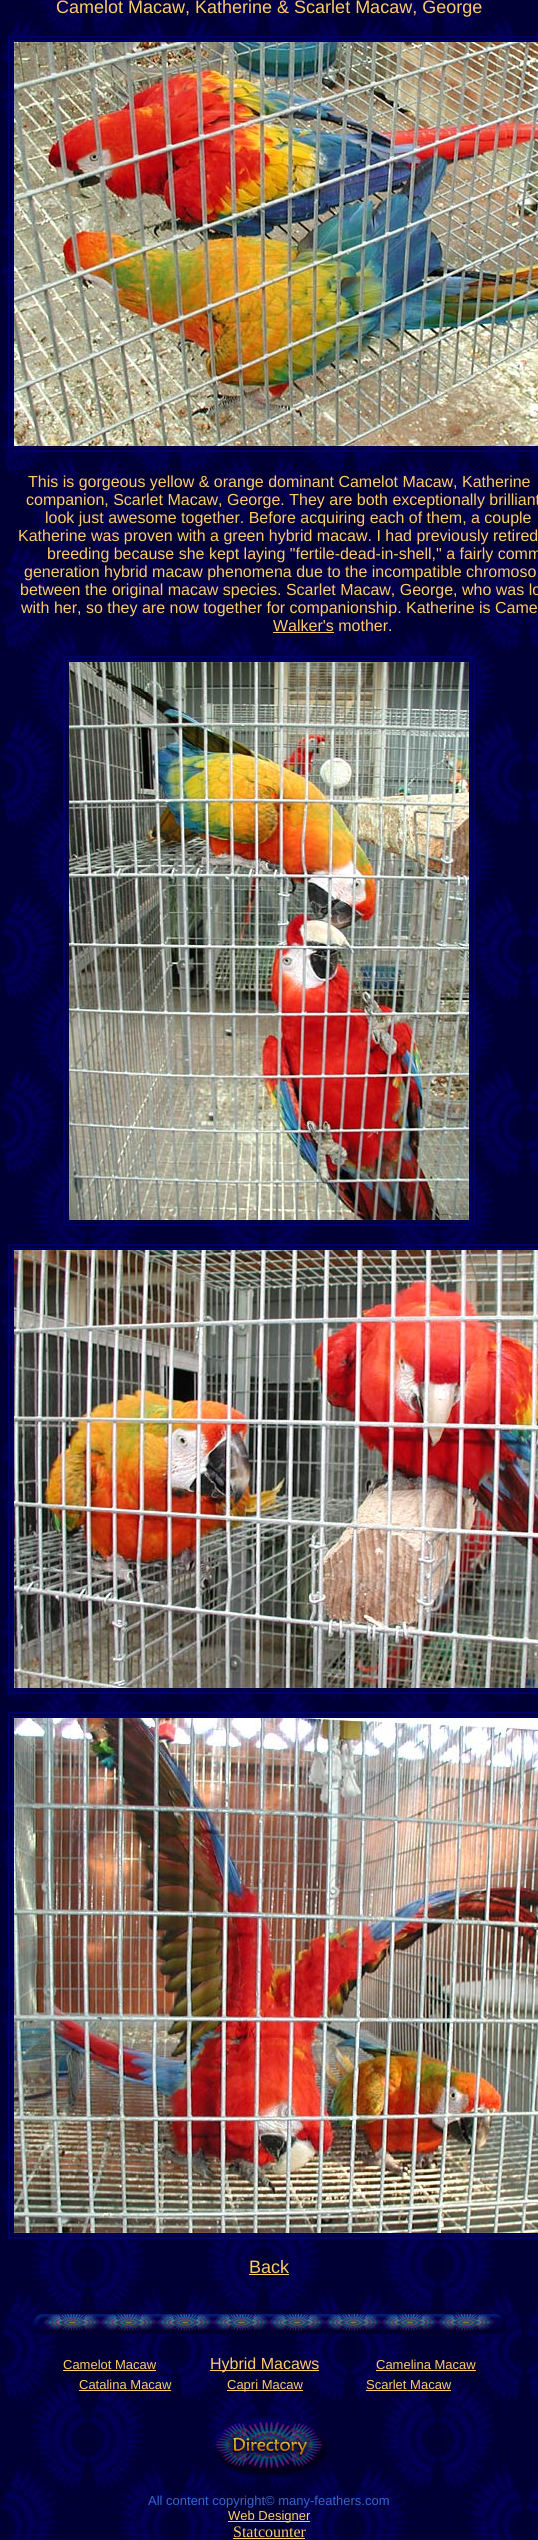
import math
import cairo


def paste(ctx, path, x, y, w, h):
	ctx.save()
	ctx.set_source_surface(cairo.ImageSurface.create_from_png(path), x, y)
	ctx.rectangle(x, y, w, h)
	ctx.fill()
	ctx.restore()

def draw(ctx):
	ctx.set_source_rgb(1, 1, 1)
	ctx.paint()
	paste(ctx, 'media/1.png', 0, 0, 538, 2540)
	ctx.select_font_face('Liberation Sans')
	ctx.set_font_size(18)
	ctx.set_source_rgb(1, 0.8, 0.4)
	ctx.move_to(56, 13)
	ctx.show_text('Camelot Macaw, Katherine & Scarlet Macaw, George')
	ctx.rectangle(9, 37, 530, 414)
	ctx.set_source_rgb(0, 0, 0.4)
	ctx.stroke()
	ctx.rectangle(12.5, 40.5, 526, 407)
	ctx.set_line_width(1)
	ctx.stroke()
	paste(ctx, 'media/2.png', 14, 42, 524, 404)
	ctx.set_font_size(16)
	ctx.set_source_rgb(1, 0.8, 0.4)
	for x, y, s in [
		(28, 487, 'This is gorgeous yellow & orange dominant Camelot Macaw, Katherine'),
		(26, 505, 'companion, Scarlet Macaw, George. They are both exceptionally brilliant'),
		(45, 523, 'look just awesome together. Before acquiring each of them, a couple'),
		(18, 541, 'Katherine was proven with a green hybrid macaw. I had previously retired'),
		(47, 559, 'breeding because she kept laying "fertile-dead-in-shell," a fairly comm'),
		(24, 577, 'generation hybrid macaw phenomena due to the incompatible chromoso'),
		(20, 595, 'between the original macaw species. Scarlet Macaw, George, who was lo'),
		(21, 613, 'with her, so they are now together for companionship. Katherine is Came'),
		(273, 631, 'Walker\'s mother.'),
	]:
		ctx.move_to(x, y)
		ctx.show_text(s)
	ctx.rectangle(273, 632, 61, 1)
	ctx.fill()
	ctx.rectangle(64, 657, 410, 568)
	ctx.set_source_rgb(0, 0, 0.4)
	ctx.set_line_width(2)
	ctx.stroke()
	ctx.rectangle(67.5, 660.5, 403, 561)
	ctx.set_line_width(1)
	ctx.stroke()
	paste(ctx, 'media/3.png', 69, 662, 400, 558)
	ctx.rectangle(9, 1245, 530, 448)
	ctx.set_line_width(2)
	ctx.stroke()
	ctx.rectangle(12.5, 1248.5, 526, 441)
	ctx.set_line_width(1)
	ctx.stroke()
	paste(ctx, 'media/4.png', 14, 1250, 524, 438)
	ctx.rectangle(9, 1713, 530, 525)
	ctx.set_line_width(2)
	ctx.stroke()
	ctx.rectangle(12.5, 1716.5, 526, 518)
	ctx.set_line_width(1)
	ctx.stroke()
	paste(ctx, 'media/5.png', 14, 1718, 524, 515)
	ctx.set_font_size(18)
	ctx.set_source_rgb(1, 0.8, 0.4)
	ctx.move_to(249, 2273)
	ctx.show_text('Back')
	ctx.rectangle(249, 2274, 40, 1)
	ctx.fill()
	paste(ctx, 'media/6.png', 34, 2314, 472, 20)
	ctx.set_font_size(13)
	ctx.move_to(63, 2369)
	ctx.show_text('Camelot Macaw')
	ctx.rectangle(63, 2370, 93, 1)
	ctx.fill()
	ctx.rectangle(210, 2370, 109, 1)
	ctx.fill()
	ctx.set_font_size(16)
	ctx.move_to(210, 2369)
	ctx.show_text('Hybrid Macaws')
	ctx.set_font_size(13)
	ctx.move_to(376, 2369)
	ctx.show_text('Camelina Macaw')
	ctx.rectangle(376, 2370, 100, 1)
	ctx.fill()
	ctx.move_to(79, 2389)
	ctx.show_text('Catalina Macaw')
	ctx.rectangle(79, 2390, 92, 1)
	ctx.fill()
	ctx.rectangle(227, 2390, 76, 1)
	ctx.fill()
	ctx.move_to(227, 2389)
	ctx.show_text('Capri Macaw')
	ctx.move_to(366, 2389)
	ctx.show_text('Scarlet Macaw')
	ctx.rectangle(366, 2390, 85, 1)
	ctx.fill()
	paste(ctx, 'media/7.png', 213, 2419, 115, 58)
	ctx.set_source_rgb(0.2, 0.4, 0.8)
	ctx.move_to(148, 2505)
	ctx.show_text('All content copyright© many-feathers.com')
	ctx.set_source_rgb(1, 0.8, 0.4)
	ctx.rectangle(228, 2521, 82, 1)
	ctx.fill()
	ctx.move_to(228, 2520)
	ctx.show_text('Web Designer')
	ctx.select_font_face('Liberation Serif')
	ctx.set_font_size(16)
	ctx.move_to(233, 2537)
	ctx.show_text('Statcounter')
	ctx.rectangle(233, 2538, 72, 1)
	ctx.fill()


surface = cairo.ImageSurface(cairo.FORMAT_RGB24, 538, 2540)
ctx = cairo.Context(surface)
options = cairo.FontOptions()
options.set_hint_metrics(cairo.HINT_METRICS_OFF)
options.set_hint_style(cairo.HINT_STYLE_NONE)
ctx.set_font_options(options)
ctx.set_miter_limit(4)
draw(ctx)
surface.write_to_png('image.png')
